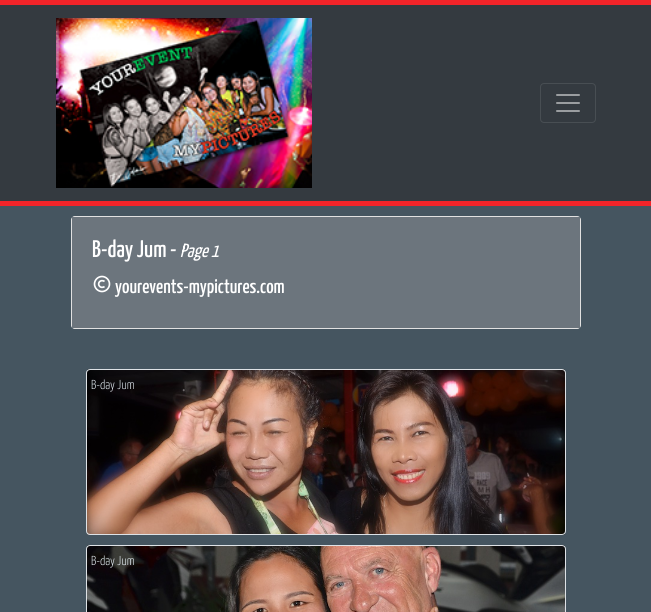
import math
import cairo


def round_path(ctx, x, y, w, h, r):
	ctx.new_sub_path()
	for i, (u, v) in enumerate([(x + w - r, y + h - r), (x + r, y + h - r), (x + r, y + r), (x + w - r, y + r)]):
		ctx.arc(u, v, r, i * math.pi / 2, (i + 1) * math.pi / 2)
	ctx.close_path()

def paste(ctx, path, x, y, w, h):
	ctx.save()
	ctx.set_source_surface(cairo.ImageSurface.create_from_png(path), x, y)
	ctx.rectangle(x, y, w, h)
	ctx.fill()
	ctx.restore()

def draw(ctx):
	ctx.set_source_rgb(0.271, 0.333, 0.376)
	ctx.paint()
	ctx.set_source_rgb(0.204, 0.227, 0.251)
	ctx.rectangle(0, 5, 651, 196)
	ctx.fill()
	ctx.set_source_rgb(0.949, 0.141, 0.161)
	ctx.rectangle(0, 0, 651, 5)
	ctx.fill()
	paste(ctx, 'media/1.png', 56, 18, 256, 170)
	round_path(ctx, 540.5, 83.5, 55, 39, 3.5)
	ctx.set_source_rgb(0.282, 0.306, 0.325)
	ctx.set_line_width(1)
	ctx.stroke()
	paste(ctx, 'media/2.png', 556, 94, 24, 18)
	ctx.set_source_rgb(0.949, 0.141, 0.161)
	ctx.rectangle(0, 201, 651, 5)
	ctx.fill()
	ctx.set_source_rgb(1, 1, 1)
	round_path(ctx, 71, 216, 510, 113, 4)
	ctx.fill()
	round_path(ctx, 71.5, 216.5, 509, 112, 3.5)
	ctx.set_source_rgba(0, 0, 0, 0.12)
	ctx.stroke()
	ctx.set_source_rgb(0.424, 0.459, 0.49)
	ctx.rectangle(72, 217, 508, 111)
	ctx.fill()
	ctx.select_font_face('Yanone Kaffeesatz Medium')
	ctx.set_font_size(24)
	ctx.set_source_rgb(1, 1, 1)
	ctx.move_to(92, 257)
	ctx.show_text('B-day Jum -')
	ctx.select_font_face('Yanone Kaffeesatz', cairo.FONT_SLANT_ITALIC)
	ctx.set_font_size(19)
	ctx.move_to(180, 257)
	ctx.show_text('Page 1')
	paste(ctx, 'media/3.png', 93, 275, 18, 18)
	ctx.select_font_face('Yanone Kaffeesatz Medium')
	ctx.set_font_size(20)
	ctx.move_to(115, 293)
	ctx.show_text('yourevents-mypictures.com')
	paste(ctx, 'media/4.png', 87, 369, 478, 166)
	round_path(ctx, 86.5, 369.5, 479, 165, 3.5)
	ctx.set_source_rgb(0.871, 0.886, 0.902)
	ctx.stroke()
	ctx.select_font_face('Yanone Kaffeesatz Light')
	ctx.set_font_size(13)
	ctx.set_source_rgb(0.941, 0.973, 1)
	ctx.move_to(91, 389)
	ctx.show_text('B-day Jum')
	paste(ctx, 'media/5.png', 87, 545, 478, 67)
	round_path(ctx, 86.5, 545.5, 479, 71, 3.5)
	ctx.set_source_rgb(0.871, 0.886, 0.902)
	ctx.stroke()
	ctx.set_source_rgb(0.941, 0.973, 1)
	ctx.move_to(91, 565)
	ctx.show_text('B-day Jum')


surface = cairo.ImageSurface(cairo.FORMAT_RGB24, 651, 612)
ctx = cairo.Context(surface)
options = cairo.FontOptions()
options.set_hint_metrics(cairo.HINT_METRICS_OFF)
options.set_hint_style(cairo.HINT_STYLE_NONE)
ctx.set_font_options(options)
ctx.set_miter_limit(4)
draw(ctx)
surface.write_to_png('image.png')
